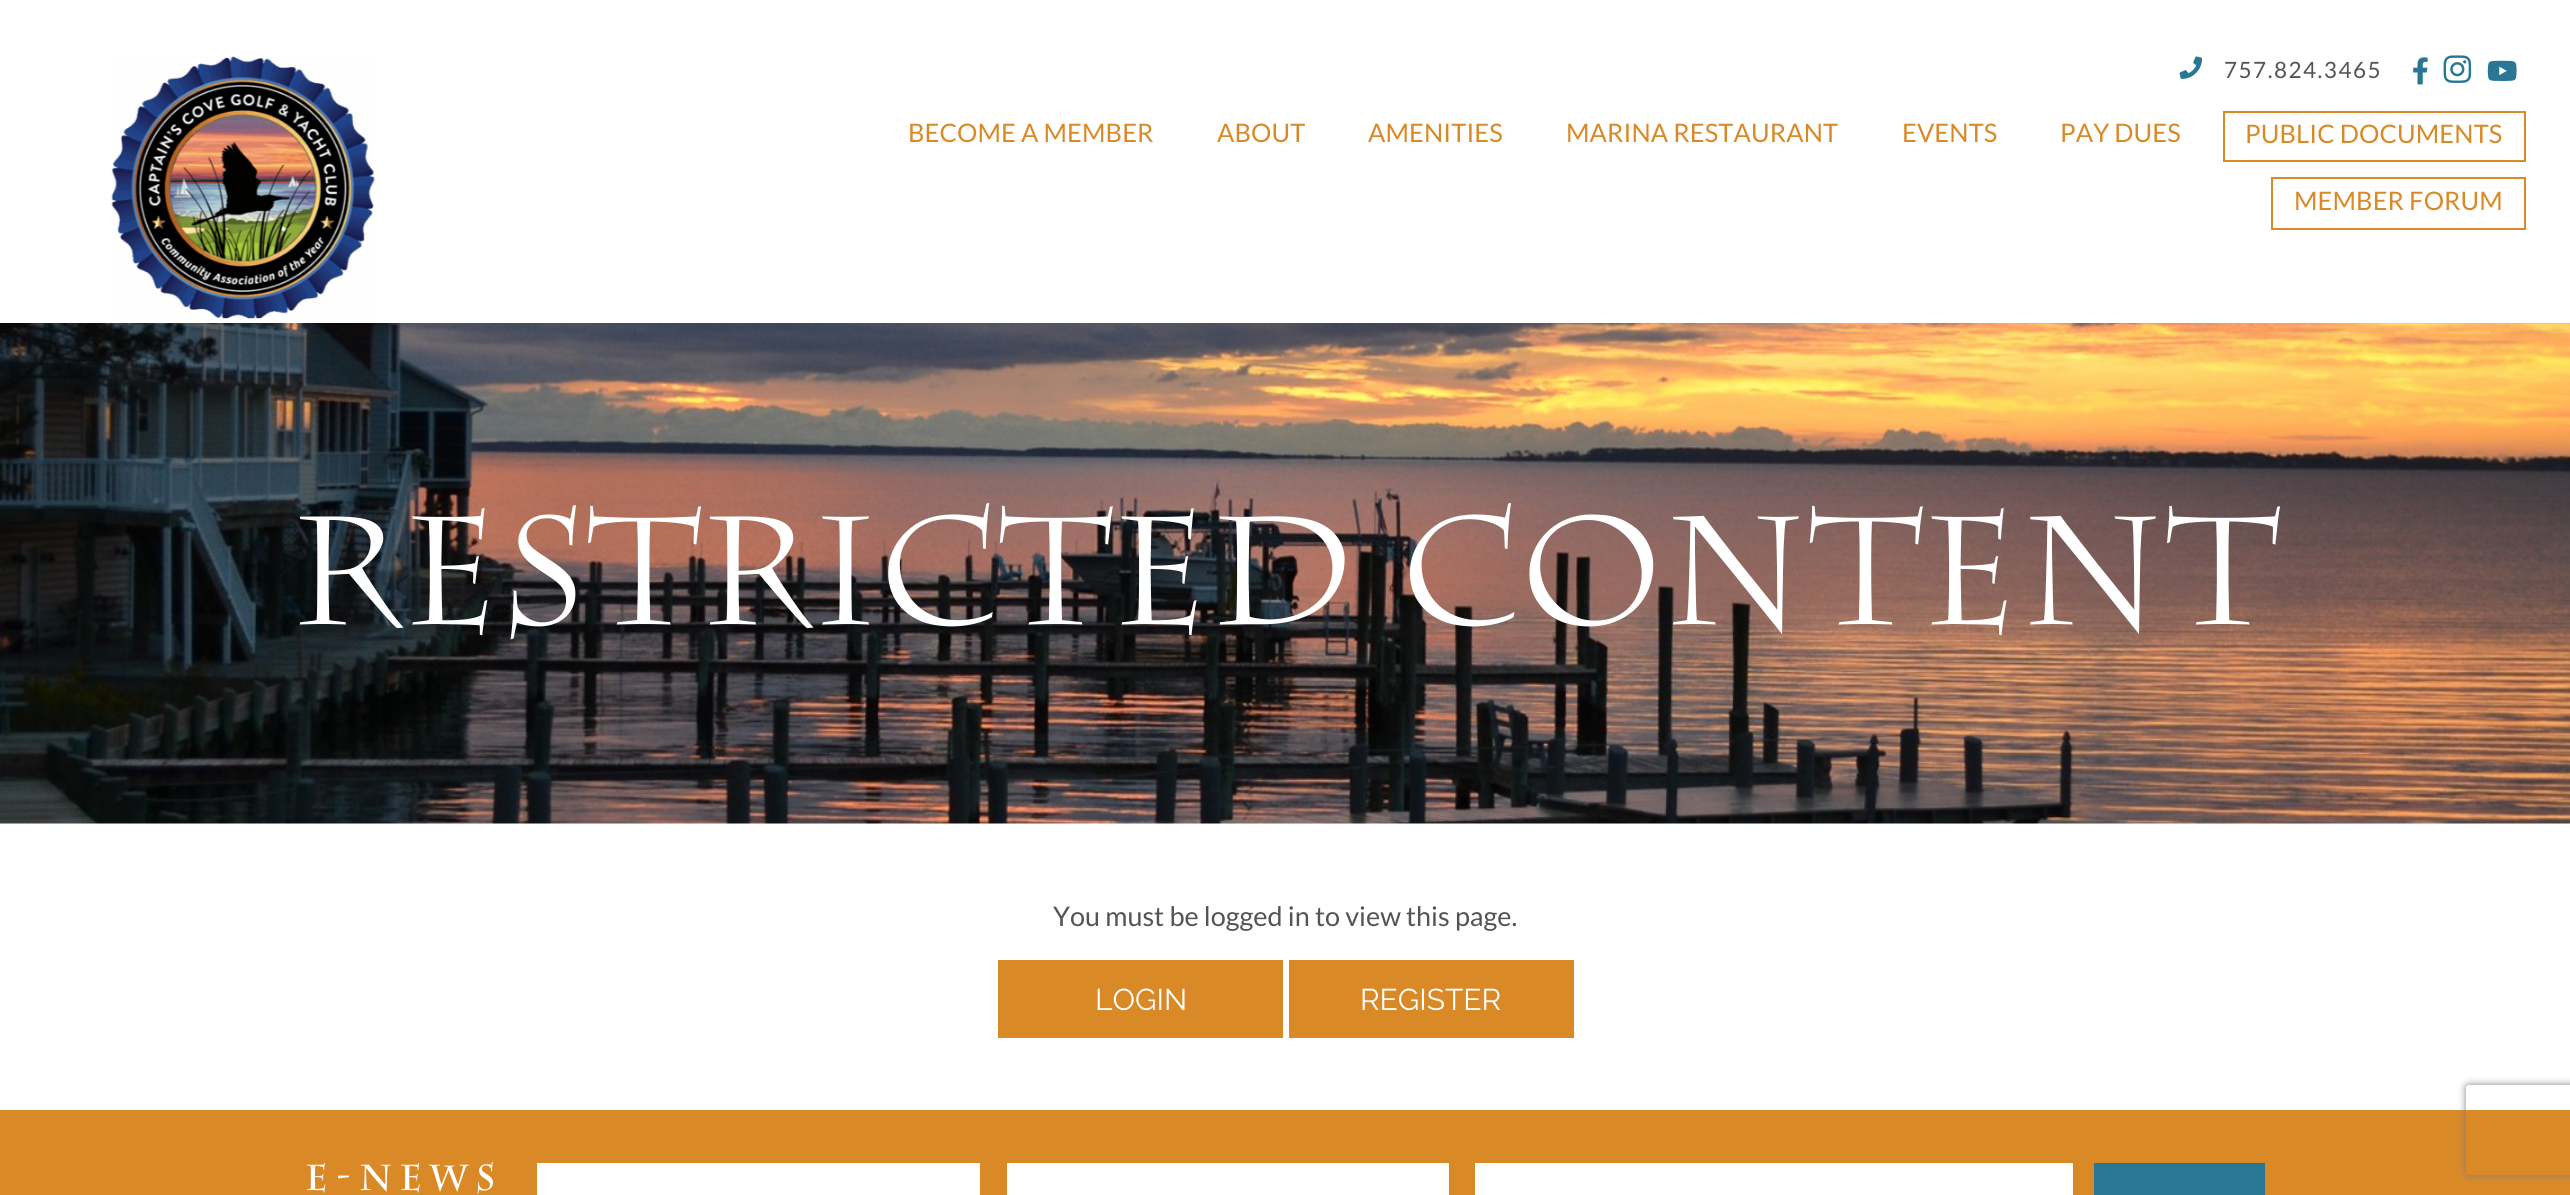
import math
import cairo


def write_spaced(ctx, x, y, s, letter, word):
	ctx.move_to(x, y)
	for ch in s:
		ctx.show_text(ch)
		ctx.rel_move_to(letter + word * (ch == ' '), 0)

def round_path(ctx, x, y, w, h, r):
	ctx.new_sub_path()
	for i, (u, v) in enumerate([(x + w - r, y + h - r), (x + r, y + h - r), (x + r, y + r), (x + w - r, y + r)]):
		ctx.arc(u, v, r, i * math.pi / 2, (i + 1) * math.pi / 2)
	ctx.close_path()

def blur_box(ctx, x, y, w, h, r, blur, alpha):
	ctx.push_group_with_content(cairo.CONTENT_ALPHA)
	ctx.set_operator(cairo.OPERATOR_SOURCE)
	for i in range(15, -16, -2):
		e = blur * i / 6
		if min(w, h) + 2 * e > 0:
			ctx.set_source_rgba(0, 0, 0, alpha * math.erfc((i - 1) / 8.5) / 2)
			round_path(ctx, x - e, y - e, w + 2 * e, h + 2 * e, max(0, min(r + e + blur * .6, min(w, h) / 2 + e)))
			ctx.fill()
	ctx.mask(ctx.pop_group())

def paste(ctx, path, x, y, w, h):
	ctx.save()
	ctx.set_source_surface(cairo.ImageSurface.create_from_png(path), x, y)
	ctx.rectangle(x, y, w, h)
	ctx.fill()
	ctx.restore()

def draw(ctx):
	ctx.set_source_rgb(1, 1, 1)
	ctx.paint()
	paste(ctx, 'media/1.png', 111, 56, 264, 263)
	paste(ctx, 'media/2.png', 2179, 56, 23, 23)
	ctx.select_font_face('Lato')
	ctx.set_font_size(22.5)
	ctx.set_source_rgb(0.329, 0.329, 0.329)
	write_spaced(ctx, 2224, 78, '757.824.3465', 1.5, 0)
	paste(ctx, 'media/3.png', 2413, 57, 15, 28)
	paste(ctx, 'media/4.png', 2443, 55, 29, 28)
	paste(ctx, 'media/5.png', 2487, 60, 30, 21)
	ctx.set_font_size(25.5)
	ctx.set_source_rgb(0.855, 0.537, 0.153)
	for x, y, s in [
		(908, 142, 'BECOME A MEMBER'),
		(1217, 142, 'ABOUT'),
		(1368, 142, 'AMENITIES'),
		(1566, 142, 'MARINA RESTAURANT'),
		(1902, 142, 'EVENTS'),
		(2060, 142, 'PAY DUES'),
	]:
		write_spaced(ctx, x, y, s, 0.1, 0)
	ctx.rectangle(2224, 112, 301, 49)
	ctx.stroke()
	write_spaced(ctx, 2245, 143, 'PUBLIC DOCUMENTS', 0.1, 0)
	ctx.rectangle(2272, 178, 253, 51)
	ctx.stroke()
	write_spaced(ctx, 2294, 210, 'MEMBER FORUM', 0.1, 0)
	paste(ctx, 'media/6.png', 0, 323, 2570, 501)
	ctx.select_font_face('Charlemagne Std')
	ctx.set_font_size(153)
	ctx.set_source_rgb(1, 1, 1)
	write_spaced(ctx, 291, 624, 'Restricted Content', 1.3, 0)
	ctx.select_font_face('Lato')
	ctx.set_font_size(27)
	ctx.set_source_rgb(0.329, 0.329, 0.329)
	ctx.move_to(1053, 926)
	ctx.show_text('You must be logged in to view this page.')
	ctx.set_source_rgb(0.855, 0.537, 0.153)
	ctx.rectangle(998, 960, 285, 78)
	ctx.fill()
	ctx.select_font_face('Raleway')
	ctx.set_font_size(30)
	ctx.set_source_rgb(1, 1, 1)
	ctx.move_to(1095, 1010)
	ctx.show_text('LOGIN')
	ctx.set_source_rgb(0.855, 0.537, 0.153)
	ctx.rectangle(1289, 960, 285, 78)
	ctx.fill()
	ctx.set_source_rgb(1, 1, 1)
	ctx.move_to(1360, 1010)
	ctx.show_text('REGISTER')
	ctx.set_source_rgb(0.855, 0.537, 0.153)
	ctx.rectangle(0, 1110, 2570, 85)
	ctx.fill()
	ctx.select_font_face('Charlemagne Std', cairo.FONT_SLANT_NORMAL, cairo.FONT_WEIGHT_BOLD)
	ctx.set_font_size(36)
	ctx.set_source_rgb(1, 1, 1)
	write_spaced(ctx, 305, 1190, 'E-NEWS', 7.5, 0)
	ctx.rectangle(537, 1163, 443, 32)
	ctx.rectangle(1007, 1163, 442, 32)
	ctx.rectangle(1475, 1163, 598, 32)
	ctx.fill()
	ctx.set_source_rgb(0.161, 0.467, 0.584)
	ctx.rectangle(2094, 1163, 171, 32)
	ctx.fill()
	ctx.save()
	ctx.set_fill_rule(cairo.FILL_RULE_EVEN_ODD)
	ctx.new_path()
	ctx.move_to(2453, 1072)
	ctx.line_to(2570, 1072)
	ctx.line_to(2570, 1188)
	ctx.line_to(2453, 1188)
	ctx.close_path()
	ctx.move_to(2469, 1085)
	ctx.line_to(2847, 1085)
	ctx.curve_to(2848.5, 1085, 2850, 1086.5, 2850, 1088)
	ctx.line_to(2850, 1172)
	ctx.curve_to(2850, 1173.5, 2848.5, 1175, 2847, 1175)
	ctx.line_to(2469, 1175)
	ctx.curve_to(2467.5, 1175, 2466, 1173.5, 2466, 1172)
	ctx.line_to(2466, 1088)
	ctx.curve_to(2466, 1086.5, 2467.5, 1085, 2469, 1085)
	ctx.close_path()
	ctx.clip()
	ctx.set_source_rgb(0.502, 0.502, 0.502)
	blur_box(ctx, 2466, 1085, 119, 90, 3, 4, 1)
	ctx.restore()


surface = cairo.ImageSurface(cairo.FORMAT_RGB24, 2570, 1195)
ctx = cairo.Context(surface)
options = cairo.FontOptions()
options.set_hint_metrics(cairo.HINT_METRICS_OFF)
options.set_hint_style(cairo.HINT_STYLE_NONE)
ctx.set_font_options(options)
ctx.set_miter_limit(4)
draw(ctx)
surface.write_to_png('image.png')
